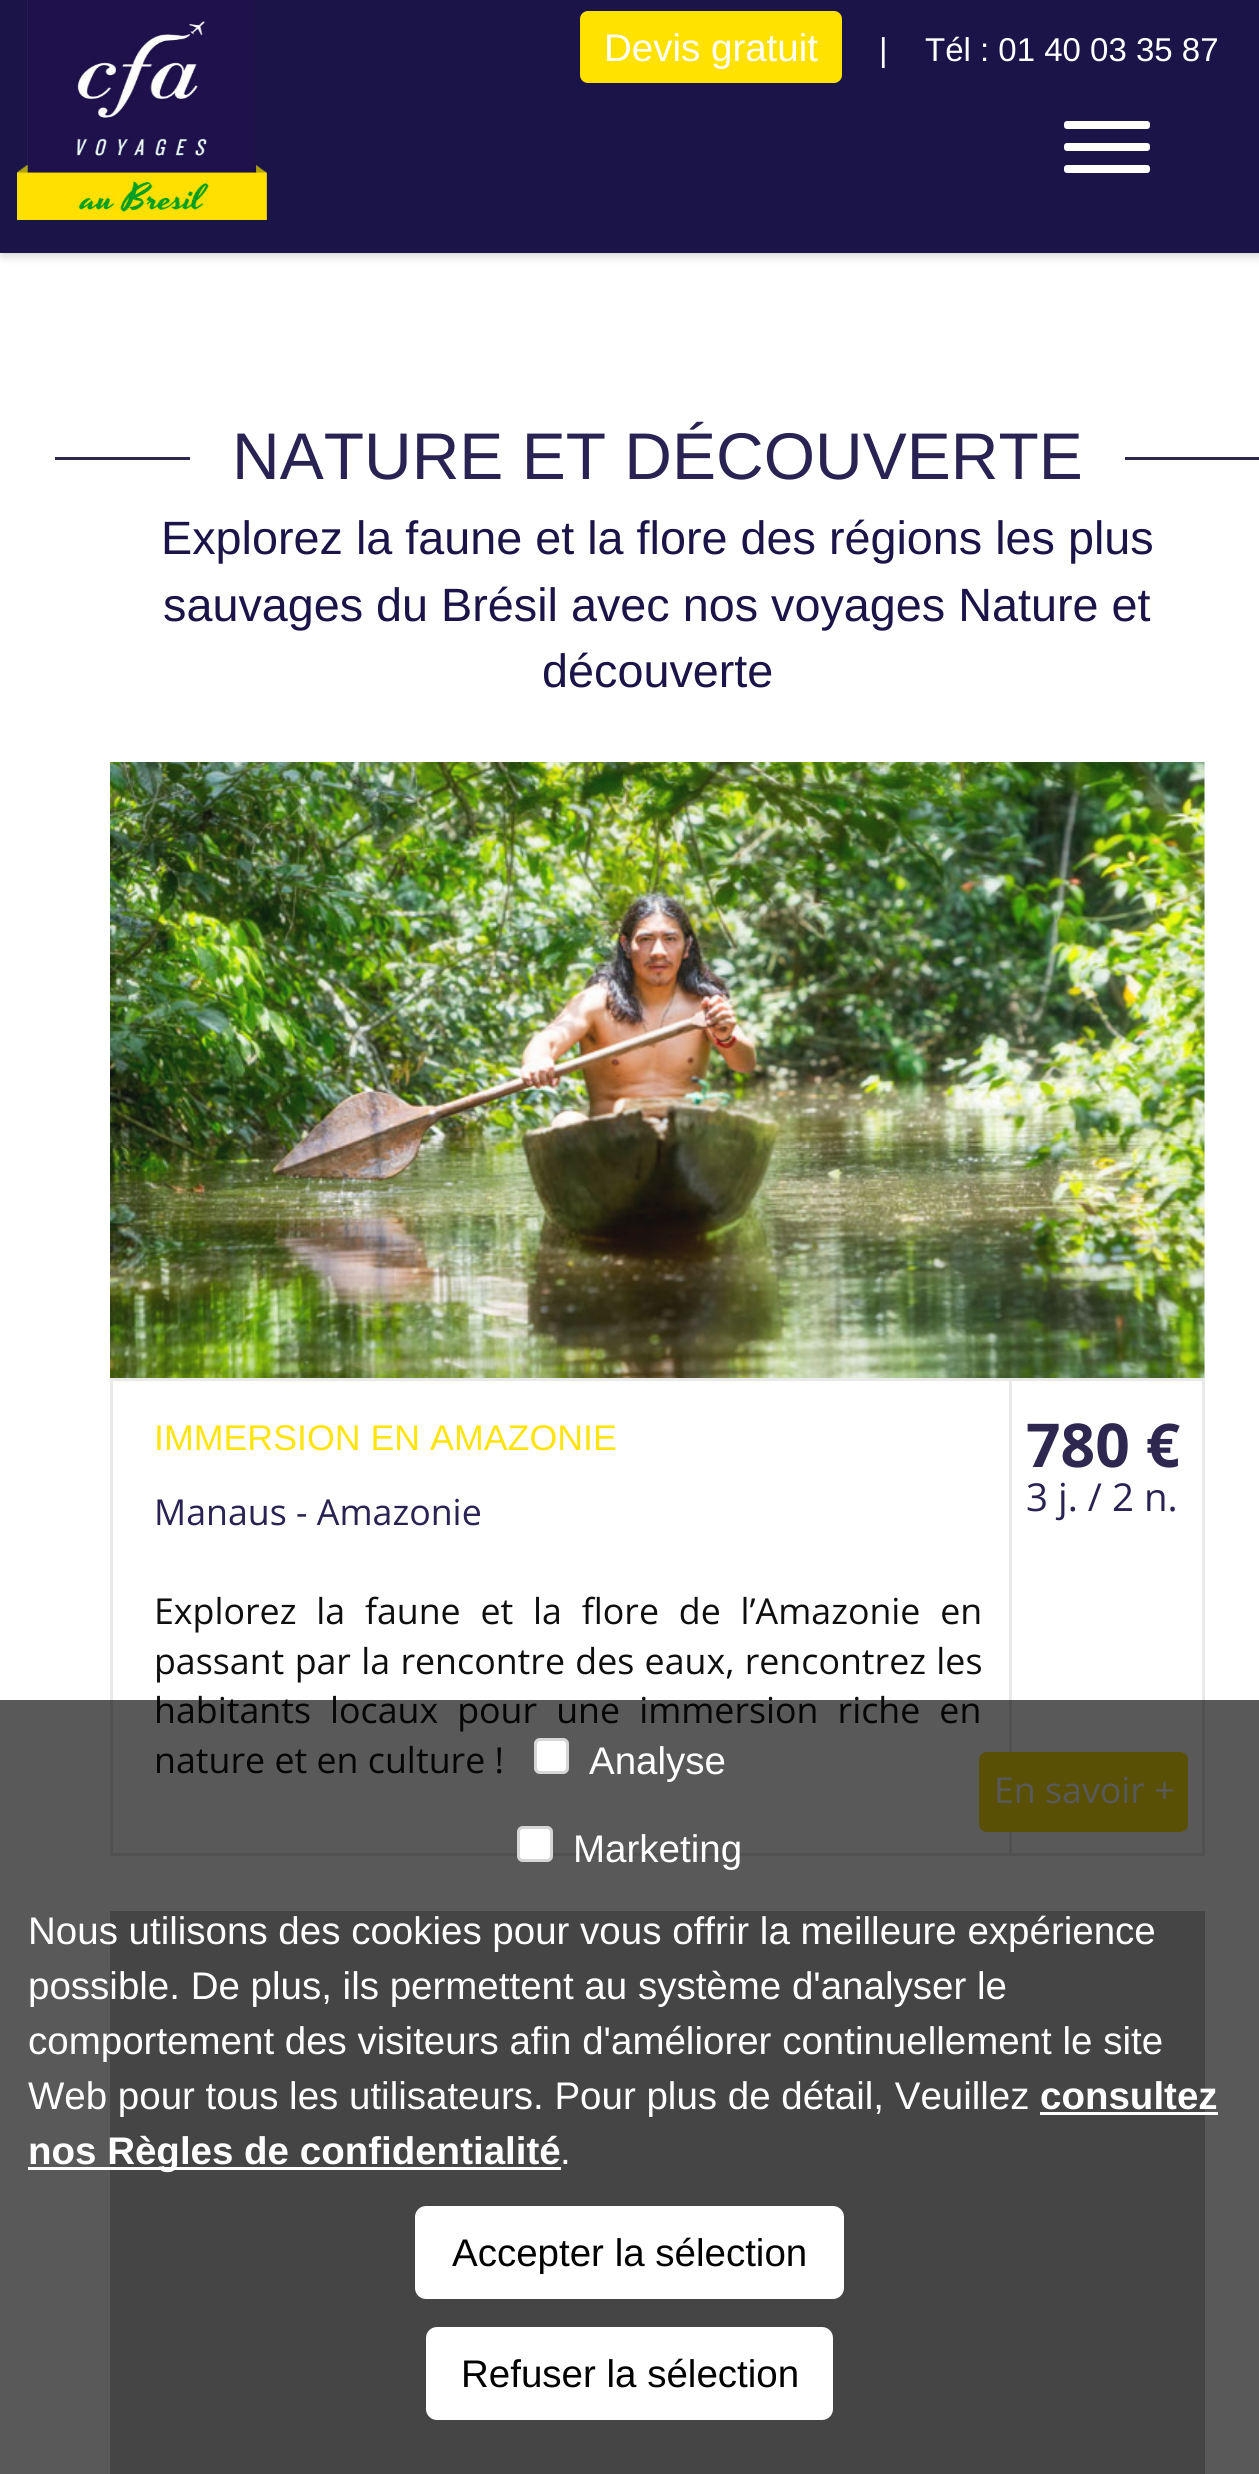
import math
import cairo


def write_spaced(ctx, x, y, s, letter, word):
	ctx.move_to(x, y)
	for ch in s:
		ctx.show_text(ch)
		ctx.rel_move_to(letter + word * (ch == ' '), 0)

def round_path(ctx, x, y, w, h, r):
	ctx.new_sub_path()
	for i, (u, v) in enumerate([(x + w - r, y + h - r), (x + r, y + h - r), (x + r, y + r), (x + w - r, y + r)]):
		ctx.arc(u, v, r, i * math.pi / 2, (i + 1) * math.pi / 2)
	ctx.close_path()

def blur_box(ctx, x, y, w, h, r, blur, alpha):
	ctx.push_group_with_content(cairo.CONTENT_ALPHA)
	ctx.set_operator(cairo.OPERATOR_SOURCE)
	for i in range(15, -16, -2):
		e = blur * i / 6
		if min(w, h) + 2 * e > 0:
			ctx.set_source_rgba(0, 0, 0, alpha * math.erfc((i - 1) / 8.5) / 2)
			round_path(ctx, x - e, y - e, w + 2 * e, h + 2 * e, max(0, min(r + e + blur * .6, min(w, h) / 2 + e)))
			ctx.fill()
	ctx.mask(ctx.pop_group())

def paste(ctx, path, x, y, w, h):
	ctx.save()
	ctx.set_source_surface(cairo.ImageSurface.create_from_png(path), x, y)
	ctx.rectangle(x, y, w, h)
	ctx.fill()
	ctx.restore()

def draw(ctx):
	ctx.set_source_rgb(1, 1, 1)
	ctx.paint()
	ctx.set_source_rgb(0, 0, 0)
	blur_box(ctx, 3, 3, 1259, 253, 0, 4, 0.1)
	blur_box(ctx, 0, 0, 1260, 253, 0, 7, 0.13)
	ctx.set_source_rgb(0.106, 0.082, 0.282)
	ctx.rectangle(0, 0, 1259, 253)
	ctx.fill()
	paste(ctx, 'media/1.png', 17, 0, 250, 220)
	ctx.set_source_rgb(1, 0.886, 0)
	round_path(ctx, 580, 11, 262, 72, 8)
	ctx.fill()
	ctx.select_font_face('Liberation Sans')
	ctx.set_font_size(38.5)
	ctx.set_source_rgb(1, 1, 1)
	ctx.move_to(604, 61)
	ctx.show_text('Devis gratuit')
	ctx.set_font_size(33)
	ctx.move_to(879, 61)
	ctx.show_text('|')
	ctx.move_to(925, 61)
	ctx.show_text('Tél : 01 40 03 35 87')
	round_path(ctx, 1064, 121, 86, 8, 3)
	ctx.fill()
	round_path(ctx, 1064, 143, 86, 8, 3)
	ctx.fill()
	round_path(ctx, 1064, 165, 86, 8, 3)
	ctx.fill()
	ctx.set_source_rgb(0.18, 0.153, 0.31)
	ctx.rectangle(55, 457, 1204, 3)
	ctx.fill()
	ctx.set_source_rgb(1, 1, 1)
	ctx.rectangle(190, 457, 935, 3)
	ctx.fill()
	ctx.set_font_size(66)
	ctx.set_source_rgb(0.157, 0.137, 0.325)
	ctx.move_to(232, 479)
	ctx.show_text('NATURE ET DÉCOUVERTE')
	ctx.set_font_size(46.75)
	ctx.set_source_rgb(0.106, 0.082, 0.282)
	for x, y, s in [
		(161, 554, 'Explorez la faune et la flore des régions les plus'),
		(163, 621, 'sauvages du Brésil avec nos voyages Nature et'),
		(542, 687, 'découverte'),
	]:
		ctx.move_to(x, y)
		ctx.show_text(s)
	ctx.set_source_rgb(0.941, 0.941, 0.941)
	ctx.rectangle(110, 762, 1095, 616)
	ctx.fill()
	paste(ctx, 'media/2.png', 110, 762, 1095, 616)
	ctx.rectangle(111.5, 1379.5, 1092, 475)
	ctx.set_source_rgb(0.914, 0.914, 0.914)
	ctx.set_line_width(3)
	ctx.stroke()
	ctx.rectangle(1009, 1381, 3, 473)
	ctx.fill()
	ctx.set_font_size(35.75)
	ctx.set_source_rgb(1, 0.894, 0.059)
	ctx.move_to(154, 1450)
	ctx.show_text('IMMERSION EN AMAZONIE')
	ctx.select_font_face('Open Sans')
	ctx.set_source_rgb(0.157, 0.137, 0.325)
	ctx.move_to(154, 1525)
	ctx.show_text('Manaus - Amazonie')
	ctx.set_source_rgb(0.059, 0.059, 0.059)
	write_spaced(ctx, 154, 1624, 'Explorez la faune et la flore de l’Amazonie en', 0, 10.5)
	write_spaced(ctx, 154, 1674, 'passant par la rencontre des eaux, rencontrez les', 0, 1)
	write_spaced(ctx, 154, 1723, 'habitants locaux pour une immersion riche en', 0, 9.75)
	ctx.move_to(154, 1773)
	ctx.show_text('nature et en culture !')
	ctx.select_font_face('Open Sans', cairo.FONT_SLANT_NORMAL, cairo.FONT_WEIGHT_BOLD)
	ctx.set_font_size(60.5)
	ctx.set_source_rgb(0.18, 0.153, 0.31)
	ctx.move_to(1026, 1467)
	ctx.show_text('780 €')
	ctx.select_font_face('Open Sans')
	ctx.set_font_size(38.5)
	ctx.set_source_rgb(0.157, 0.137, 0.325)
	ctx.move_to(1026, 1511)
	ctx.show_text('3 j. / 2 n.')
	ctx.set_source_rgb(1, 0.894, 0.059)
	round_path(ctx, 979, 1752, 209, 80, 8)
	ctx.fill()
	ctx.set_font_size(35.75)
	ctx.set_source_rgb(1, 1, 1)
	ctx.move_to(994, 1803)
	ctx.show_text('En savoir +')
	ctx.set_source_rgb(0.773, 0.773, 0.773)
	ctx.rectangle(110, 1911, 1095, 563)
	ctx.fill()
	ctx.set_source_rgba(0, 0, 0, 0.65)
	ctx.rectangle(0, 1700, 1259, 774)
	ctx.fill()
	ctx.set_source_rgb(1, 1, 1)
	round_path(ctx, 534, 1738, 35, 36, 6)
	ctx.fill()
	round_path(ctx, 535.5, 1739.5, 32, 33, 4.5)
	ctx.set_source_rgba(0.463, 0.463, 0.463, 0.3)
	ctx.stroke()
	ctx.select_font_face('Liberation Sans')
	ctx.set_font_size(38.5)
	ctx.set_source_rgb(1, 1, 1)
	ctx.move_to(589, 1774)
	ctx.show_text('Analyse')
	round_path(ctx, 517, 1826, 36, 36, 6)
	ctx.fill()
	round_path(ctx, 518.5, 1827.5, 33, 33, 4.5)
	ctx.set_source_rgba(0.463, 0.463, 0.463, 0.3)
	ctx.stroke()
	ctx.set_source_rgb(1, 1, 1)
	for x, y, s in [
		(573, 1862, 'Marketing'),
		(28, 1944, 'Nous utilisons des cookies pour vous offrir la meilleure expérience'),
		(28, 1999, 'possible. De plus, ils permettent au système d\'analyser le'),
		(28, 2054, 'comportement des visiteurs afin d\'améliorer continuellement le site'),
		(28, 2109, 'Web pour tous les utilisateurs. Pour plus de détail, Veuillez'),
	]:
		ctx.move_to(x, y)
		ctx.show_text(s)
	ctx.select_font_face('Liberation Sans', cairo.FONT_SLANT_NORMAL, cairo.FONT_WEIGHT_BOLD)
	ctx.move_to(1040, 2109)
	ctx.show_text('consultez')
	ctx.rectangle(1040, 2112, 178, 3)
	ctx.fill()
	ctx.rectangle(28, 2167, 533, 3)
	ctx.fill()
	ctx.move_to(28, 2164)
	ctx.show_text('nos Règles de confidentialité')
	ctx.select_font_face('Liberation Sans')
	ctx.move_to(560, 2164)
	ctx.show_text('.')
	round_path(ctx, 415, 2206, 429, 93, 11)
	ctx.fill()
	ctx.set_source_rgb(0, 0, 0)
	ctx.move_to(452, 2266)
	ctx.show_text('Accepter la sélection')
	ctx.set_source_rgb(1, 1, 1)
	round_path(ctx, 426, 2327, 407, 93, 11)
	ctx.fill()
	ctx.set_source_rgb(0, 0, 0)
	ctx.move_to(461, 2387)
	ctx.show_text('Refuser la sélection')


surface = cairo.ImageSurface(cairo.FORMAT_RGB24, 1259, 2474)
ctx = cairo.Context(surface)
options = cairo.FontOptions()
options.set_hint_metrics(cairo.HINT_METRICS_OFF)
options.set_hint_style(cairo.HINT_STYLE_NONE)
ctx.set_font_options(options)
ctx.set_miter_limit(4)
draw(ctx)
surface.write_to_png('image.png')
